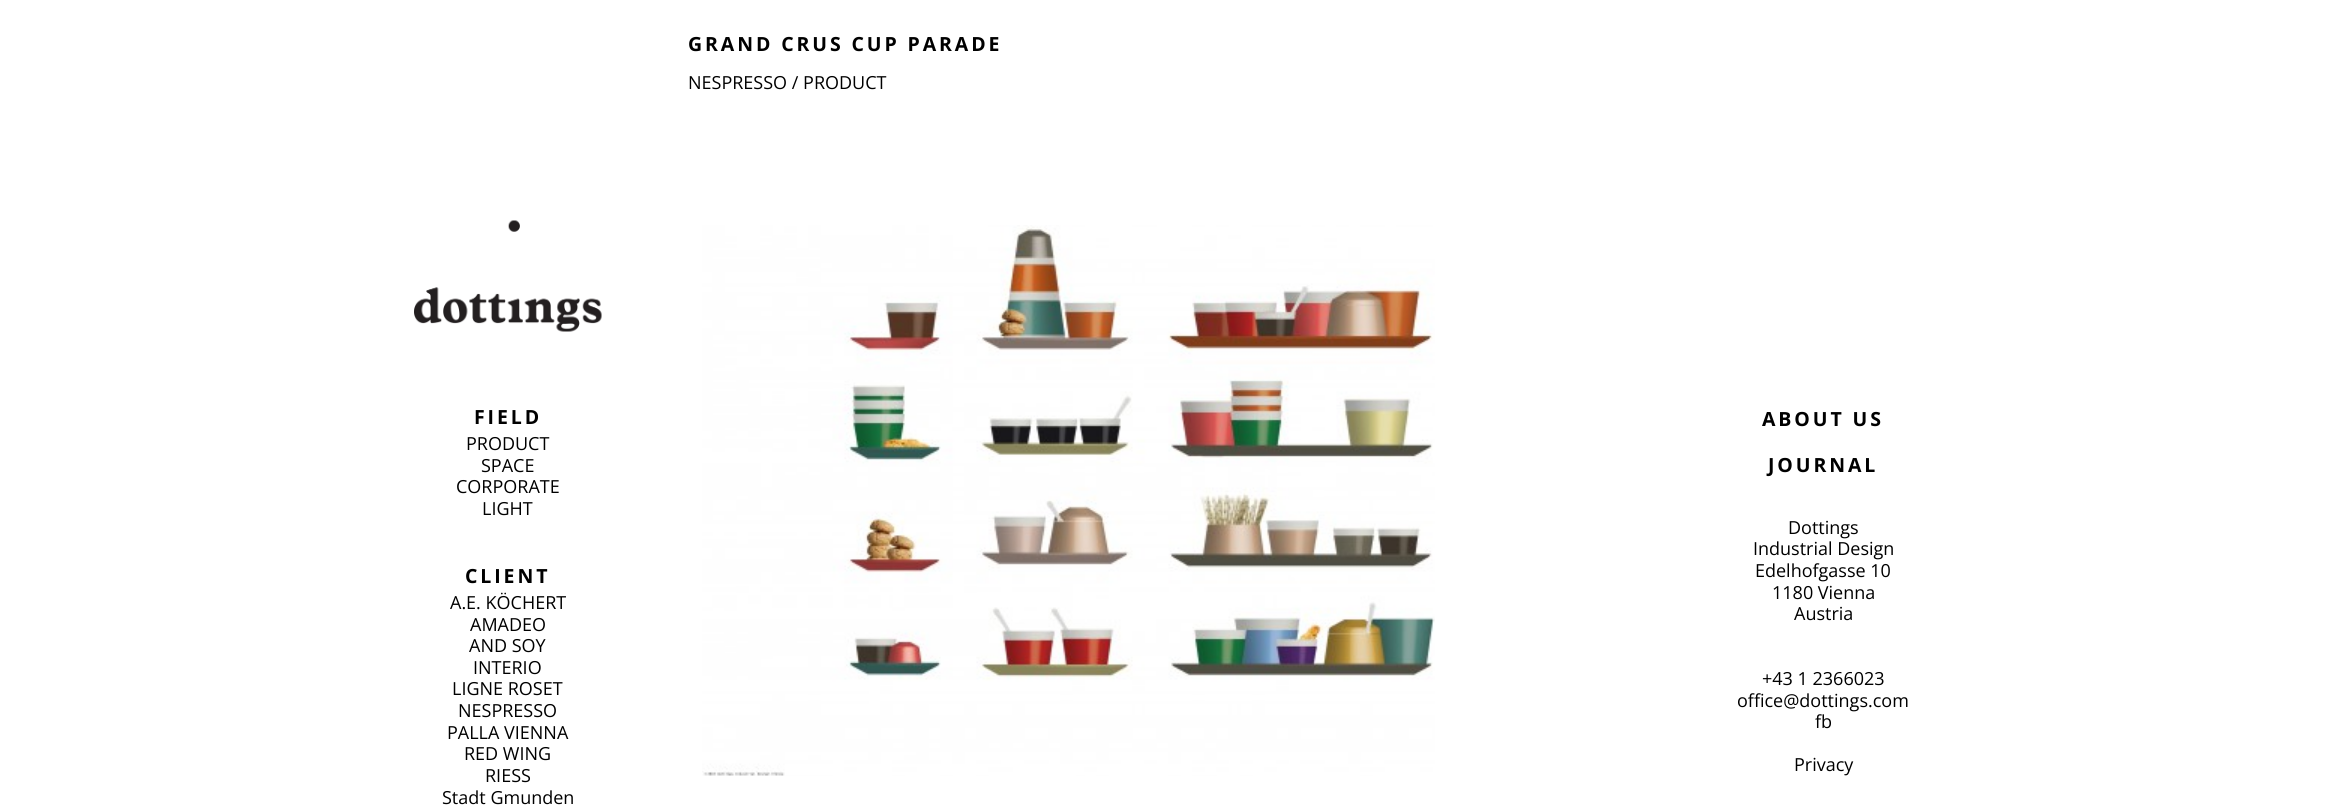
import math
import cairo


def write_spaced(ctx, x, y, s, letter, word):
	ctx.move_to(x, y)
	for ch in s:
		ctx.show_text(ch)
		ctx.rel_move_to(letter + word * (ch == ' '), 0)

def paste(ctx, path, x, y, w, h):
	ctx.save()
	ctx.set_source_surface(cairo.ImageSurface.create_from_png(path), x, y)
	ctx.rectangle(x, y, w, h)
	ctx.fill()
	ctx.restore()

def draw(ctx):
	ctx.set_source_rgb(1, 1, 1)
	ctx.paint()
	ctx.select_font_face('Open Sans', cairo.FONT_SLANT_NORMAL, cairo.FONT_WEIGHT_BOLD)
	ctx.set_font_size(19.5)
	ctx.set_source_rgb(0, 0, 0)
	write_spaced(ctx, 688, 51, 'GRAND CRUS CUP PARADE', 2.9, 0)
	ctx.select_font_face('Open Sans')
	ctx.set_font_size(18)
	ctx.move_to(688, 89)
	ctx.show_text('NESPRESSO / PRODUCT')
	paste(ctx, 'media/1.png', 702, 225, 733, 551)
	paste(ctx, 'media/2.png', 414, 220, 188, 112)
	ctx.select_font_face('Open Sans', cairo.FONT_SLANT_NORMAL, cairo.FONT_WEIGHT_BOLD)
	ctx.set_font_size(19.5)
	write_spaced(ctx, 474, 424, 'FIELD', 2.9, 0)
	ctx.select_font_face('Open Sans')
	ctx.set_font_size(18)
	for x, y, s in [
		(466, 450, 'PRODUCT'),
		(481, 472, 'SPACE'),
		(456, 493, 'CORPORATE'),
		(482, 515, 'LIGHT'),
	]:
		ctx.move_to(x, y)
		ctx.show_text(s)
	ctx.select_font_face('Open Sans', cairo.FONT_SLANT_NORMAL, cairo.FONT_WEIGHT_BOLD)
	ctx.set_font_size(19.5)
	write_spaced(ctx, 465, 583, 'CLIENT', 2.9, 0)
	ctx.select_font_face('Open Sans')
	ctx.set_font_size(18)
	for x, y, s in [
		(450, 609, 'A.E. KÖCHERT'),
		(470, 631, 'AMADEO'),
		(469, 652, 'AND SOY'),
		(473, 674, 'INTERIO'),
		(452, 695, 'LIGNE ROSET'),
		(458, 717, 'NESPRESSO'),
		(447, 739, 'PALLA VIENNA'),
		(464, 760, 'RED WING'),
		(485, 782, 'RIESS'),
		(442, 804, 'Stadt Gmunden'),
	]:
		ctx.move_to(x, y)
		ctx.show_text(s)
	ctx.select_font_face('Open Sans', cairo.FONT_SLANT_NORMAL, cairo.FONT_WEIGHT_BOLD)
	ctx.set_font_size(19.5)
	write_spaced(ctx, 1762, 426, 'ABOUT US', 2.9, 0)
	write_spaced(ctx, 1768, 472, 'JOURNAL', 2.9, 0)
	ctx.select_font_face('Open Sans')
	ctx.set_font_size(18)
	for x, y, s in [
		(1788, 534, 'Dottings'),
		(1753, 555, 'Industrial Design'),
		(1755, 577, 'Edelhofgasse 10'),
		(1772, 599, '1180 Vienna'),
		(1794, 620, 'Austria'),
		(1762, 685, '+43 1 2366023'),
		(1737, 707, 'office@dottings.com'),
		(1815, 728, 'fb'),
		(1794, 771, 'Privacy'),
	]:
		ctx.move_to(x, y)
		ctx.show_text(s)


surface = cairo.ImageSurface(cairo.FORMAT_RGB24, 2330, 810)
ctx = cairo.Context(surface)
options = cairo.FontOptions()
options.set_hint_metrics(cairo.HINT_METRICS_OFF)
options.set_hint_style(cairo.HINT_STYLE_NONE)
ctx.set_font_options(options)
ctx.set_miter_limit(4)
draw(ctx)
surface.write_to_png('image.png')
